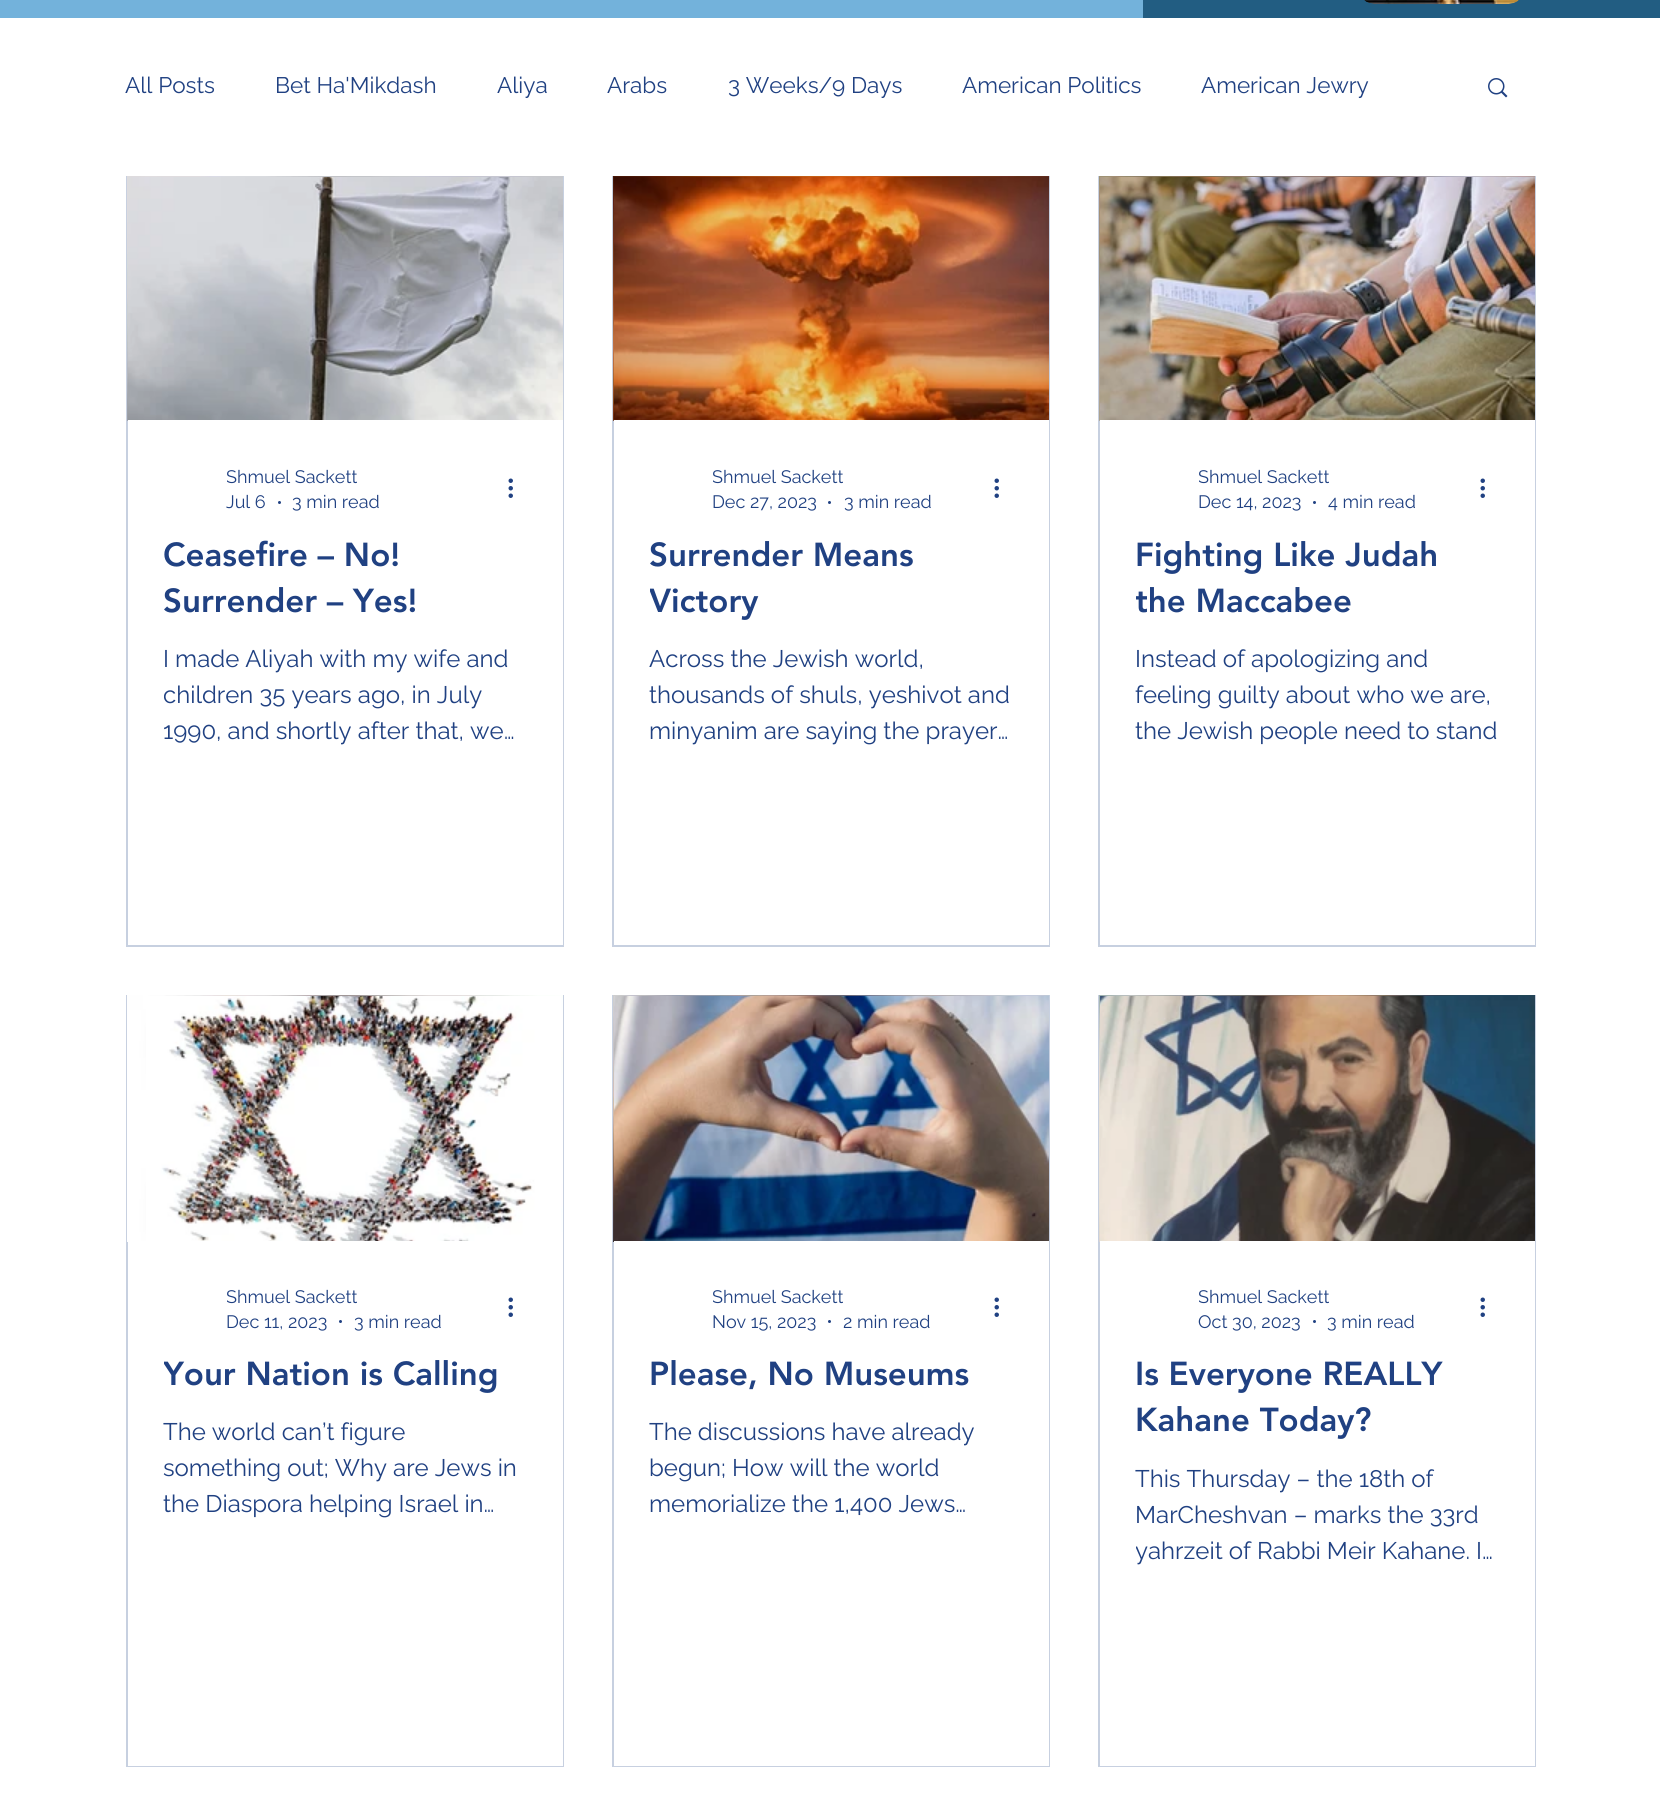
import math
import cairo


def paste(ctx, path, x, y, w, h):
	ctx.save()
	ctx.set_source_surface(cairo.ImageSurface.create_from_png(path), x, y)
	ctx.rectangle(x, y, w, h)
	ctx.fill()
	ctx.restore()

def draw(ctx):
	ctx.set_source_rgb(1, 1, 1)
	ctx.paint()
	ctx.set_source_rgb(0.451, 0.698, 0.859)
	ctx.rectangle(0, 0, 1143, 18)
	ctx.fill()
	ctx.set_source_rgb(0.133, 0.365, 0.51)
	ctx.rectangle(1143, 0, 517, 18)
	ctx.fill()
	paste(ctx, 'media/1.png', 1364, 0, 155, 4)
	ctx.select_font_face('Raleway')
	ctx.set_font_size(22.5)
	ctx.set_source_rgb(0.125, 0.255, 0.51)
	for x, y, s in [
		(125, 93, 'All Posts'),
		(275, 93, 'Bet Ha\'Mikdash'),
		(497, 93, 'Aliya'),
		(607, 93, 'Arabs'),
		(728, 93, '3 Weeks/9 Days'),
		(962, 93, 'American Politics'),
		(1201, 93, 'American Jewry'),
	]:
		ctx.move_to(x, y)
		ctx.show_text(s)
	paste(ctx, 'media/2.png', 1488, 78, 20, 20)
	ctx.rectangle(127, 177, 436, 769)
	ctx.set_source_rgb(0.78, 0.816, 0.878)
	ctx.stroke()
	paste(ctx, 'media/3.png', 127, 176, 436, 245)
	paste(ctx, 'media/4.png', 128, 177, 435, 243)
	ctx.set_source_rgb(1, 1, 1)
	ctx.rectangle(128, 420, 435, 525)
	ctx.fill()
	ctx.save()
	ctx.rectangle(227, 467, 130, 21)
	ctx.clip()
	ctx.set_font_size(18)
	ctx.set_source_rgb(0.125, 0.255, 0.51)
	ctx.move_to(226, 483)
	ctx.show_text('Shmuel Sackett')
	ctx.restore()
	ctx.set_font_size(18)
	ctx.set_source_rgb(0.125, 0.255, 0.51)
	ctx.move_to(226, 508)
	ctx.show_text('Jul 6')
	ctx.new_path()
	ctx.arc(279.5, 502.5, 1.5, 0, 2 * math.pi)
	ctx.fill()
	ctx.move_to(292, 508)
	ctx.show_text('3 min read')
	paste(ctx, 'media/5.png', 508, 478, 5, 20)
	ctx.select_font_face('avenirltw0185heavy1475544 Black')
	ctx.set_font_size(33)
	ctx.move_to(163, 566)
	ctx.show_text('Ceasefire – No!')
	ctx.move_to(163, 612)
	ctx.show_text('Surrender – Yes!')
	ctx.select_font_face('Raleway')
	ctx.set_font_size(24)
	ctx.move_to(163, 667)
	ctx.show_text('I made Aliyah with my wife and')
	ctx.save()
	ctx.rectangle(164, 642, 363, 108)
	ctx.clip()
	ctx.move_to(163, 703)
	ctx.show_text('children 35 years ago, in July')
	ctx.restore()
	ctx.move_to(163, 739)
	ctx.show_text('1990, and shortly after that, we…')
	ctx.rectangle(613, 177, 436, 769)
	ctx.set_source_rgb(0.78, 0.816, 0.878)
	ctx.stroke()
	paste(ctx, 'media/6.png', 613, 176, 436, 245)
	paste(ctx, 'media/7.png', 614, 177, 435, 243)
	ctx.set_source_rgb(1, 1, 1)
	ctx.rectangle(614, 420, 435, 525)
	ctx.fill()
	ctx.save()
	ctx.rectangle(713, 467, 130, 21)
	ctx.clip()
	ctx.set_font_size(18)
	ctx.set_source_rgb(0.125, 0.255, 0.51)
	ctx.move_to(712, 483)
	ctx.show_text('Shmuel Sackett')
	ctx.restore()
	ctx.set_font_size(18)
	ctx.set_source_rgb(0.125, 0.255, 0.51)
	ctx.move_to(712, 508)
	ctx.show_text('Dec 27, 2023')
	ctx.new_path()
	ctx.arc(829.5, 502.5, 1.5, 0, 2 * math.pi)
	ctx.fill()
	ctx.move_to(844, 508)
	ctx.show_text('3 min read')
	paste(ctx, 'media/5.png', 994, 478, 5, 20)
	ctx.select_font_face('avenirltw0185heavy1475544 Black')
	ctx.set_font_size(33)
	ctx.move_to(649, 566)
	ctx.show_text('Surrender Means')
	ctx.save()
	ctx.rectangle(650, 533, 363, 93)
	ctx.clip()
	ctx.move_to(649, 612)
	ctx.show_text('Victory')
	ctx.restore()
	ctx.select_font_face('Raleway')
	ctx.set_font_size(24)
	for x, y, s in [
		(649, 667, 'Across the Jewish world,'),
		(649, 703, 'thousands of shuls, yeshivot and'),
		(649, 739, 'minyanim are saying the prayer…'),
	]:
		ctx.move_to(x, y)
		ctx.show_text(s)
	ctx.rectangle(1099, 177, 436, 769)
	ctx.set_source_rgb(0.78, 0.816, 0.878)
	ctx.stroke()
	paste(ctx, 'media/8.png', 1099, 176, 436, 245)
	paste(ctx, 'media/9.png', 1100, 177, 435, 243)
	ctx.set_source_rgb(1, 1, 1)
	ctx.rectangle(1100, 420, 435, 525)
	ctx.fill()
	ctx.save()
	ctx.rectangle(1199, 467, 130, 21)
	ctx.clip()
	ctx.set_font_size(18)
	ctx.set_source_rgb(0.125, 0.255, 0.51)
	ctx.move_to(1198, 483)
	ctx.show_text('Shmuel Sackett')
	ctx.restore()
	ctx.set_font_size(18)
	ctx.set_source_rgb(0.125, 0.255, 0.51)
	ctx.move_to(1198, 508)
	ctx.show_text('Dec 14, 2023')
	ctx.new_path()
	ctx.arc(1314.5, 502.5, 1.5, 0, 2 * math.pi)
	ctx.fill()
	ctx.move_to(1328, 508)
	ctx.show_text('4 min read')
	paste(ctx, 'media/5.png', 1480, 478, 5, 20)
	ctx.select_font_face('avenirltw0185heavy1475544 Black')
	ctx.set_font_size(33)
	ctx.move_to(1135, 566)
	ctx.show_text('Fighting Like Judah')
	ctx.save()
	ctx.rectangle(1136, 533, 363, 93)
	ctx.clip()
	ctx.move_to(1135, 612)
	ctx.show_text('the Maccabee')
	ctx.restore()
	ctx.select_font_face('Raleway')
	ctx.set_font_size(24)
	for x, y, s in [
		(1135, 667, 'Instead of apologizing and'),
		(1135, 703, 'feeling guilty about who we are,'),
		(1135, 739, 'the Jewish people need to stand'),
	]:
		ctx.move_to(x, y)
		ctx.show_text(s)
	ctx.rectangle(127, 996, 436, 770)
	ctx.set_source_rgb(0.78, 0.816, 0.878)
	ctx.stroke()
	paste(ctx, 'media/10.png', 127, 995, 436, 247)
	paste(ctx, 'media/11.png', 146, 996, 415, 245)
	ctx.set_source_rgb(1, 1, 1)
	ctx.rectangle(128, 1241, 435, 525)
	ctx.fill()
	ctx.save()
	ctx.rectangle(227, 1287, 130, 21)
	ctx.clip()
	ctx.set_font_size(18)
	ctx.set_source_rgb(0.125, 0.255, 0.51)
	ctx.move_to(226, 1303)
	ctx.show_text('Shmuel Sackett')
	ctx.restore()
	ctx.set_font_size(18)
	ctx.set_source_rgb(0.125, 0.255, 0.51)
	ctx.move_to(226, 1328)
	ctx.show_text('Dec 11, 2023')
	ctx.new_path()
	ctx.arc(340.5, 1321.5, 1.5, 0, 2 * math.pi)
	ctx.fill()
	ctx.move_to(354, 1328)
	ctx.show_text('3 min read')
	paste(ctx, 'media/5.png', 508, 1297, 5, 20)
	ctx.save()
	ctx.rectangle(164, 1353, 363, 45)
	ctx.clip()
	ctx.select_font_face('avenirltw0185heavy1475544 Black')
	ctx.set_font_size(33)
	ctx.move_to(163, 1385)
	ctx.show_text('Your Nation is Calling')
	ctx.restore()
	ctx.set_font_size(24)
	for x, y, s in [
		(163, 1440, 'The world can’t figure'),
		(163, 1476, 'something out; Why are Jews in'),
		(163, 1512, 'the Diaspora helping Israel in…'),
	]:
		ctx.move_to(x, y)
		ctx.show_text(s)
	ctx.rectangle(613, 996, 436, 770)
	ctx.set_source_rgb(0.78, 0.816, 0.878)
	ctx.stroke()
	paste(ctx, 'media/12.png', 613, 995, 436, 247)
	paste(ctx, 'media/13.png', 614, 996, 435, 245)
	ctx.set_source_rgb(1, 1, 1)
	ctx.rectangle(614, 1241, 435, 525)
	ctx.fill()
	ctx.save()
	ctx.rectangle(713, 1287, 130, 21)
	ctx.clip()
	ctx.set_font_size(18)
	ctx.set_source_rgb(0.125, 0.255, 0.51)
	ctx.move_to(712, 1303)
	ctx.show_text('Shmuel Sackett')
	ctx.restore()
	ctx.set_font_size(18)
	ctx.set_source_rgb(0.125, 0.255, 0.51)
	ctx.move_to(712, 1328)
	ctx.show_text('Nov 15, 2023')
	ctx.new_path()
	ctx.arc(829.5, 1321.5, 1.5, 0, 2 * math.pi)
	ctx.fill()
	ctx.move_to(843, 1328)
	ctx.show_text('2 min read')
	paste(ctx, 'media/5.png', 994, 1297, 5, 20)
	ctx.select_font_face('avenirltw0185heavy1475544 Black')
	ctx.set_font_size(33)
	ctx.move_to(649, 1385)
	ctx.show_text('Please, No Museums')
	ctx.select_font_face('Raleway')
	ctx.set_font_size(24)
	for x, y, s in [
		(649, 1440, 'The discussions have already'),
		(649, 1476, 'begun; How will the world'),
		(649, 1512, 'memorialize the 1,400 Jews…'),
	]:
		ctx.move_to(x, y)
		ctx.show_text(s)
	ctx.rectangle(1099, 996, 436, 770)
	ctx.set_source_rgb(0.78, 0.816, 0.878)
	ctx.stroke()
	paste(ctx, 'media/14.png', 1099, 995, 436, 247)
	paste(ctx, 'media/15.png', 1100, 996, 435, 245)
	ctx.set_source_rgb(1, 1, 1)
	ctx.rectangle(1100, 1241, 435, 525)
	ctx.fill()
	ctx.save()
	ctx.rectangle(1199, 1287, 130, 21)
	ctx.clip()
	ctx.set_font_size(18)
	ctx.set_source_rgb(0.125, 0.255, 0.51)
	ctx.move_to(1198, 1303)
	ctx.show_text('Shmuel Sackett')
	ctx.restore()
	ctx.set_font_size(18)
	ctx.set_source_rgb(0.125, 0.255, 0.51)
	ctx.move_to(1198, 1328)
	ctx.show_text('Oct 30, 2023')
	ctx.new_path()
	ctx.arc(1314.5, 1321.5, 1.5, 0, 2 * math.pi)
	ctx.fill()
	ctx.move_to(1327, 1328)
	ctx.show_text('3 min read')
	paste(ctx, 'media/5.png', 1480, 1297, 5, 20)
	ctx.select_font_face('avenirltw0185heavy1475544 Black')
	ctx.set_font_size(33)
	ctx.move_to(1135, 1385)
	ctx.show_text('Is Everyone REALLY')
	ctx.move_to(1135, 1431)
	ctx.show_text('Kahane Today?')
	ctx.select_font_face('Raleway')
	ctx.set_font_size(24)
	ctx.move_to(1135, 1487)
	ctx.show_text('This Thursday – the 18th of')
	ctx.move_to(1135, 1523)
	ctx.show_text('MarCheshvan – marks the 33rd')
	ctx.save()
	ctx.rectangle(1136, 1461, 363, 108)
	ctx.clip()
	ctx.move_to(1135, 1559)
	ctx.show_text('yahrzeit of Rabbi Meir Kahane. I…')
	ctx.restore()


surface = cairo.ImageSurface(cairo.FORMAT_RGB24, 1660, 1803)
ctx = cairo.Context(surface)
options = cairo.FontOptions()
options.set_hint_metrics(cairo.HINT_METRICS_OFF)
options.set_hint_style(cairo.HINT_STYLE_NONE)
ctx.set_font_options(options)
ctx.set_miter_limit(4)
draw(ctx)
surface.write_to_png('image.png')
